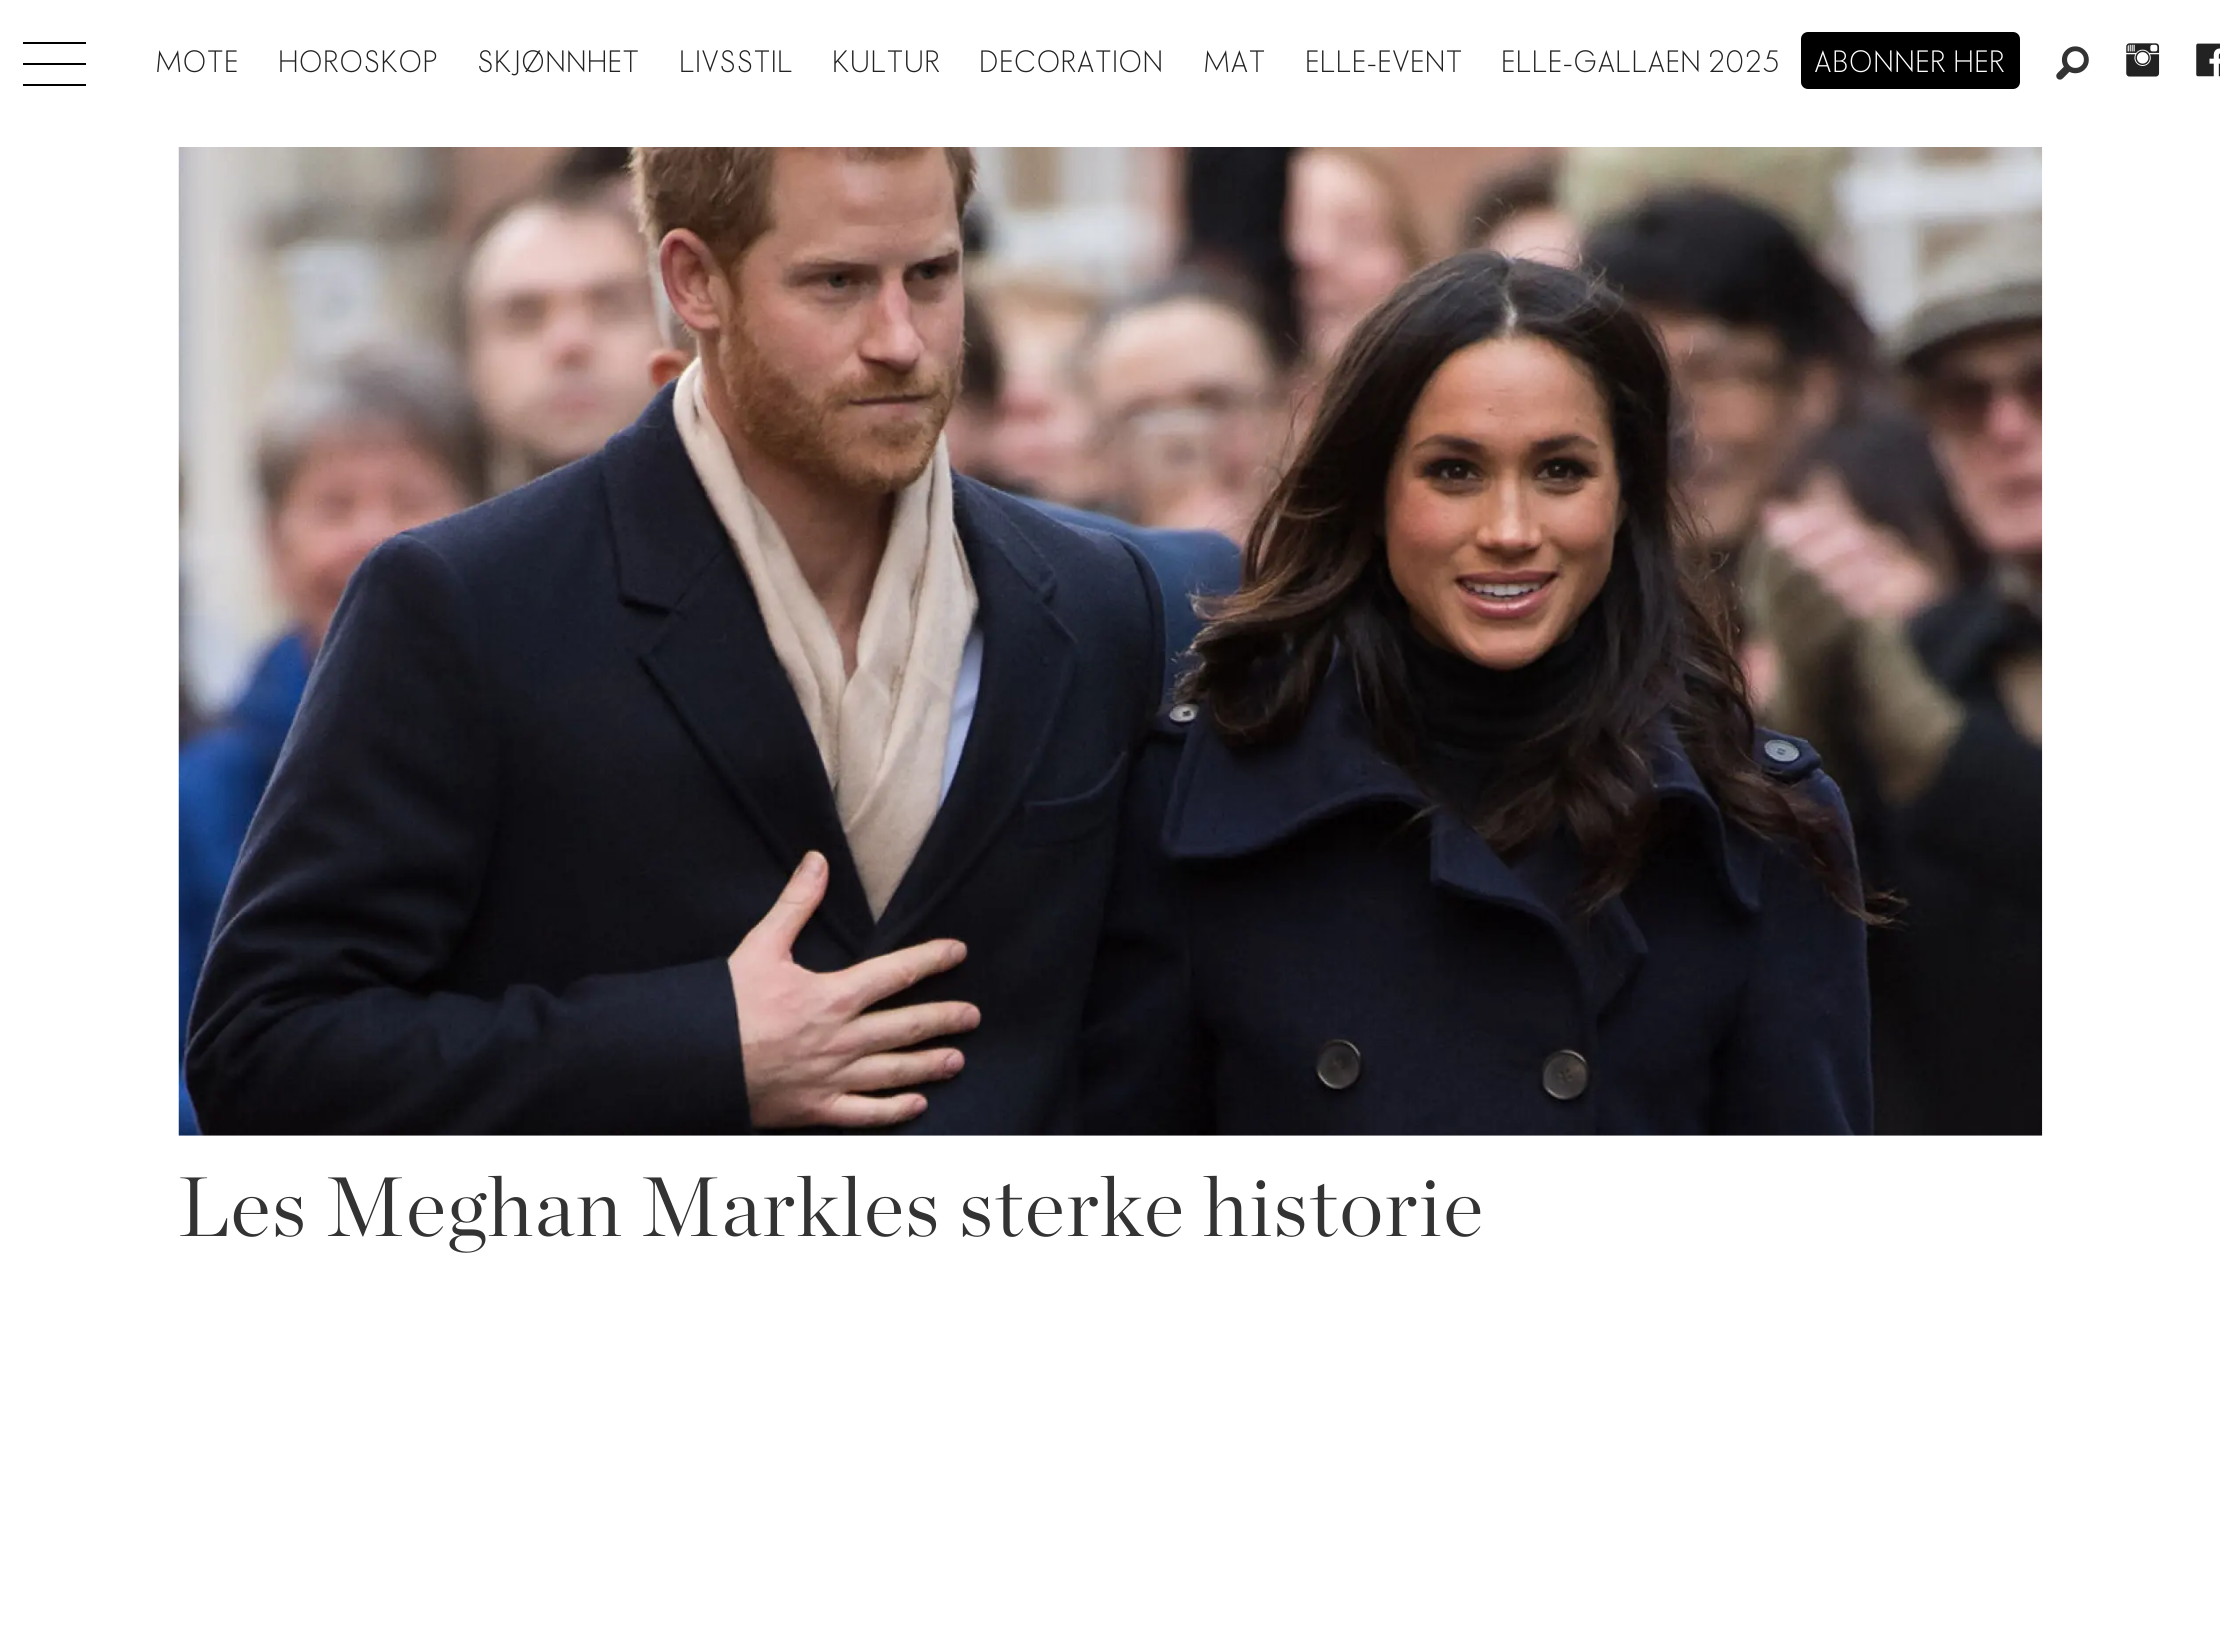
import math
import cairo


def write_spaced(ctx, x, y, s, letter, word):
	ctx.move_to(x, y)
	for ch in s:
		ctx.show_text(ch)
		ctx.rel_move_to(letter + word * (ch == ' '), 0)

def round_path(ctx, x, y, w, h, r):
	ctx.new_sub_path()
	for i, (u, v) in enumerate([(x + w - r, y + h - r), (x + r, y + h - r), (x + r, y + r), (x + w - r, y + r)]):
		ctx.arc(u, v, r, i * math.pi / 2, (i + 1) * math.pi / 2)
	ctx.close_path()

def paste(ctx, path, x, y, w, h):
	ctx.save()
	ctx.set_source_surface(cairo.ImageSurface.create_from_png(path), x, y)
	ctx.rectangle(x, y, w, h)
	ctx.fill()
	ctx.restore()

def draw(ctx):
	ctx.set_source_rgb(1, 1, 1)
	ctx.paint()
	ctx.set_source_rgb(0, 0, 0)
	ctx.rectangle(23, 63, 63, 2)
	ctx.rectangle(23, 42, 63, 2)
	ctx.rectangle(23, 84, 63, 2)
	ctx.fill()
	ctx.select_font_face('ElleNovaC')
	ctx.set_font_size(28)
	ctx.set_source_rgb(0.133, 0.133, 0.133)
	for x, y, s in [
		(156, 72, 'MOTE'),
		(279, 72, 'HOROSKOP'),
		(478, 72, 'SKJØNNHET'),
		(680, 72, 'LIVSSTIL'),
		(833, 72, 'KULTUR'),
		(980, 72, 'DECORATION'),
		(1204, 72, 'MAT'),
		(1306, 72, 'ELLE-EVENT'),
		(1502, 72, 'ELLE-GALLAEN 2025'),
	]:
		write_spaced(ctx, x, y, s, 2.25, 0)
	ctx.set_source_rgb(0, 0, 0)
	round_path(ctx, 1801, 32, 219, 57, 7)
	ctx.fill()
	ctx.set_source_rgb(1, 1, 1)
	write_spaced(ctx, 1815, 72, 'ABONNER HER', 2.4, 0)
	paste(ctx, 'media/1.png', 2056, 46, 33, 34)
	paste(ctx, 'media/2.png', 2126, 43, 34, 34)
	paste(ctx, 'media/3.png', 2196, 43, 24, 34)
	paste(ctx, 'media/4.png', 178, 147, 1865, 989)
	ctx.select_font_face('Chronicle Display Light')
	ctx.set_font_size(84)
	ctx.set_source_rgb(0.2, 0.2, 0.2)
	write_spaced(ctx, 178, 1236, 'Les Meghan Markles sterke historie', 1.75, 0)


surface = cairo.ImageSurface(cairo.FORMAT_RGB24, 2220, 1633)
ctx = cairo.Context(surface)
options = cairo.FontOptions()
options.set_hint_metrics(cairo.HINT_METRICS_OFF)
options.set_hint_style(cairo.HINT_STYLE_NONE)
ctx.set_font_options(options)
ctx.set_miter_limit(4)
draw(ctx)
surface.write_to_png('image.png')
